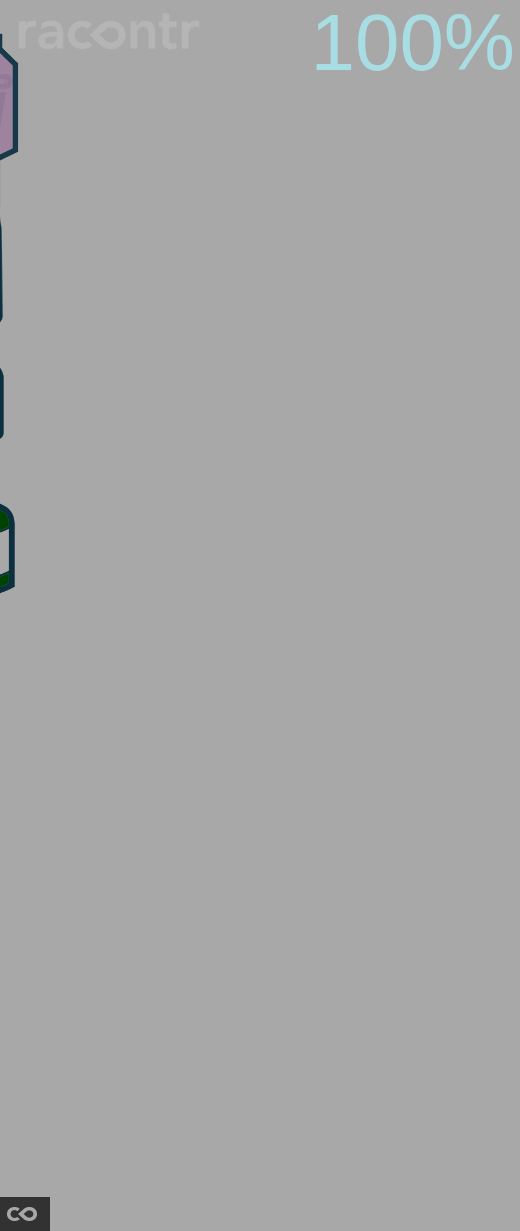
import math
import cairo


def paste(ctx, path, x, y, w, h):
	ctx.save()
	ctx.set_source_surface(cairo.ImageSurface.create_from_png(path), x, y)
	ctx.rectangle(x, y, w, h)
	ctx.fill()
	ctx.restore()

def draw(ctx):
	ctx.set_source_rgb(1, 1, 1)
	ctx.paint()
	paste(ctx, 'media/1.png', 0, 0, 520, 1231)


surface = cairo.ImageSurface(cairo.FORMAT_RGB24, 520, 1231)
ctx = cairo.Context(surface)
options = cairo.FontOptions()
options.set_hint_metrics(cairo.HINT_METRICS_OFF)
options.set_hint_style(cairo.HINT_STYLE_NONE)
ctx.set_font_options(options)
ctx.set_miter_limit(4)
draw(ctx)
surface.write_to_png('image.png')
